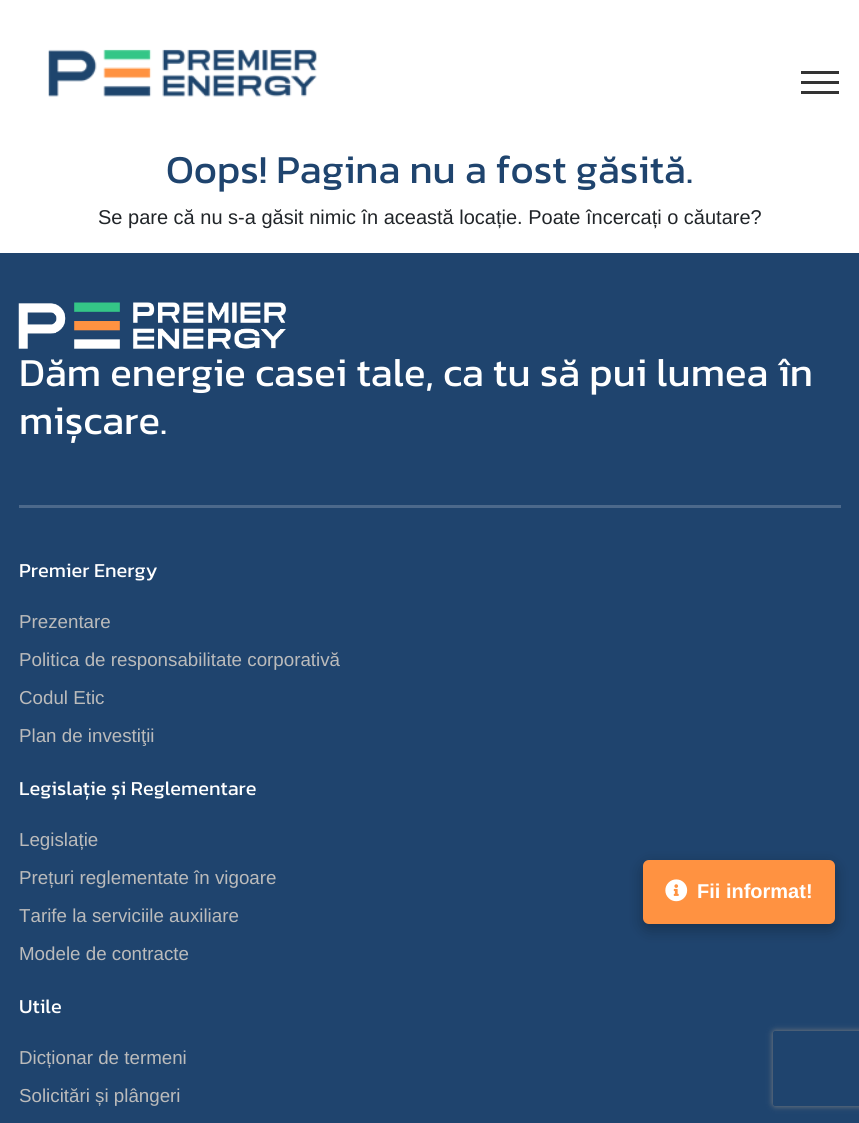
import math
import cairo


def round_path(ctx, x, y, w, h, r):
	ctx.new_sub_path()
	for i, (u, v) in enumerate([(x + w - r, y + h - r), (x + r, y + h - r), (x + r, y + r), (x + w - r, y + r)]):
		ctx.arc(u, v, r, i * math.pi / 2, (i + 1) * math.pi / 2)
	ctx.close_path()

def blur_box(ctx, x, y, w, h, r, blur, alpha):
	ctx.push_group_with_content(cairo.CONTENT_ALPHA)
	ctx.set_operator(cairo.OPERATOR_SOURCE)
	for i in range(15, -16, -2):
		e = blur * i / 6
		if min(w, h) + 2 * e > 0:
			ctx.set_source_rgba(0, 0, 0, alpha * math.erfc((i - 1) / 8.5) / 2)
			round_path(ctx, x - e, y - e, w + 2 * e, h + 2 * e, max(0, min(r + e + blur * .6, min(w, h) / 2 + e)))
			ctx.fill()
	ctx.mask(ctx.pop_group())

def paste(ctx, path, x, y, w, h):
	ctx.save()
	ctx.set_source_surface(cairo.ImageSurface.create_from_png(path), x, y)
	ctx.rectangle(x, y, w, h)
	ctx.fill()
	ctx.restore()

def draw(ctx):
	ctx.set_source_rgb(1, 1, 1)
	ctx.paint()
	paste(ctx, 'media/1.png', 48, 49, 269, 48)
	ctx.set_source_rgb(0.2, 0.2, 0.2)
	ctx.rectangle(801, 71, 38, 3)
	ctx.rectangle(801, 81, 38, 3)
	ctx.rectangle(801, 91, 38, 3)
	ctx.fill()
	ctx.select_font_face('Kanit')
	ctx.set_font_size(40)
	ctx.set_source_rgb(0.122, 0.267, 0.431)
	ctx.move_to(166, 183)
	ctx.show_text('Oops! Pagina nu a fost găsită.')
	ctx.select_font_face('Liberation Sans')
	ctx.set_font_size(20)
	ctx.set_source_rgb(0.129, 0.145, 0.161)
	ctx.move_to(98, 224)
	ctx.show_text('Se pare că nu s-a găsit nimic în această locație. Poate încercați o căutare?')
	ctx.set_source_rgb(0.122, 0.267, 0.431)
	ctx.rectangle(0, 253, 859, 870)
	ctx.fill()
	paste(ctx, 'media/2.png', 18, 302, 269, 47)
	ctx.select_font_face('Kanit')
	ctx.set_font_size(40)
	ctx.set_source_rgb(1, 1, 1)
	ctx.move_to(19, 386)
	ctx.show_text('Dăm energie casei tale, ca tu să pui lumea în')
	ctx.move_to(19, 434)
	ctx.show_text('mișcare.')
	ctx.set_source_rgb(0, 0, 0)
	blur_box(ctx, 643, 865, 192, 64, 6, 7.5, 0.3)
	ctx.set_source_rgb(1, 0.573, 0.255)
	round_path(ctx, 643, 860, 192, 64, 6)
	ctx.fill()
	paste(ctx, 'media/3.png', 665, 879, 23, 23)
	ctx.select_font_face('Liberation Sans', cairo.FONT_SLANT_NORMAL, cairo.FONT_WEIGHT_BOLD)
	ctx.set_font_size(20)
	ctx.set_source_rgb(1, 1, 1)
	ctx.move_to(697, 898)
	ctx.show_text('Fii informat!')
	ctx.set_source_rgb(0.298, 0.412, 0.545)
	ctx.rectangle(19, 505, 822, 3)
	ctx.fill()
	ctx.select_font_face('Kanit')
	ctx.set_source_rgb(1, 1, 1)
	ctx.move_to(19, 577)
	ctx.show_text('Premier Energy')
	ctx.select_font_face('Liberation Sans')
	ctx.set_font_size(18.75)
	ctx.set_source_rgb(0.733, 0.733, 0.733)
	for x, y, s in [
		(19, 628, 'Prezentare'),
		(19, 666, 'Politica de responsabilitate corporativă'),
		(19, 704, 'Codul Etic'),
		(19, 742, 'Plan de investiţii'),
	]:
		ctx.move_to(x, y)
		ctx.show_text(s)
	ctx.select_font_face('Kanit')
	ctx.set_font_size(20)
	ctx.set_source_rgb(1, 1, 1)
	ctx.move_to(19, 795)
	ctx.show_text('Legislație și Reglementare')
	ctx.select_font_face('Liberation Sans')
	ctx.set_font_size(18.75)
	ctx.set_source_rgb(0.733, 0.733, 0.733)
	for x, y, s in [
		(19, 846, 'Legislație'),
		(19, 884, 'Prețuri reglementate în vigoare'),
		(19, 922, 'Tarife la serviciile auxiliare'),
		(19, 960, 'Modele de contracte'),
	]:
		ctx.move_to(x, y)
		ctx.show_text(s)
	ctx.select_font_face('Kanit')
	ctx.set_font_size(20)
	ctx.set_source_rgb(1, 1, 1)
	ctx.move_to(19, 1013)
	ctx.show_text('Utile')
	ctx.select_font_face('Liberation Sans')
	ctx.set_font_size(18.75)
	ctx.set_source_rgb(0.733, 0.733, 0.733)
	ctx.move_to(19, 1064)
	ctx.show_text('Dicționar de termeni')
	ctx.move_to(19, 1102)
	ctx.show_text('Solicitări și plângeri')
	ctx.save()
	ctx.set_fill_rule(cairo.FILL_RULE_EVEN_ODD)
	ctx.new_path()
	ctx.move_to(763, 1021)
	ctx.line_to(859, 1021)
	ctx.line_to(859, 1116)
	ctx.line_to(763, 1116)
	ctx.close_path()
	ctx.move_to(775.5, 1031)
	ctx.line_to(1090.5, 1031)
	ctx.curve_to(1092, 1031, 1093, 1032, 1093, 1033.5)
	ctx.line_to(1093, 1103.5)
	ctx.curve_to(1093, 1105, 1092, 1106, 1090.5, 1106)
	ctx.line_to(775.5, 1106)
	ctx.curve_to(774, 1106, 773, 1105, 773, 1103.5)
	ctx.line_to(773, 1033.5)
	ctx.curve_to(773, 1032, 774, 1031, 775.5, 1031)
	ctx.close_path()
	ctx.clip()
	ctx.set_source_rgb(0.502, 0.502, 0.502)
	blur_box(ctx, 773, 1031, 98, 75, 2.5, 3, 1)
	ctx.restore()


surface = cairo.ImageSurface(cairo.FORMAT_RGB24, 859, 1123)
ctx = cairo.Context(surface)
options = cairo.FontOptions()
options.set_hint_metrics(cairo.HINT_METRICS_OFF)
options.set_hint_style(cairo.HINT_STYLE_NONE)
ctx.set_font_options(options)
ctx.set_miter_limit(4)
draw(ctx)
surface.write_to_png('image.png')
